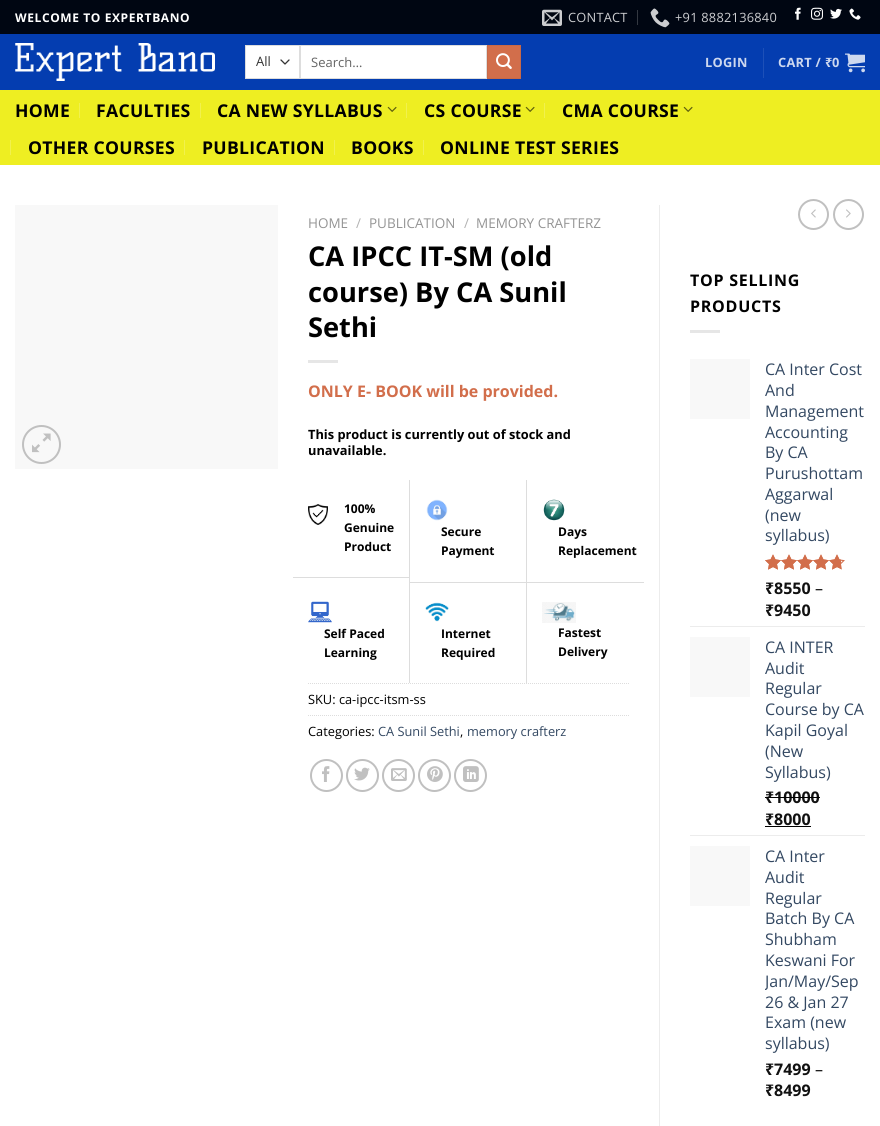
import math
import cairo


def write_spaced(ctx, x, y, s, letter, word):
	ctx.move_to(x, y)
	for ch in s:
		ctx.show_text(ch)
		ctx.rel_move_to(letter + word * (ch == ' '), 0)

def paste(ctx, path, x, y, w, h):
	ctx.save()
	ctx.set_source_surface(cairo.ImageSurface.create_from_png(path), x, y)
	ctx.rectangle(x, y, w, h)
	ctx.fill()
	ctx.restore()

def draw(ctx):
	ctx.set_source_rgb(1, 1, 1)
	ctx.paint()
	ctx.set_source_rgb(0, 0.024, 0.071)
	ctx.rectangle(0, 0, 880, 34)
	ctx.fill()
	ctx.select_font_face('Open Sans', cairo.FONT_SLANT_NORMAL, cairo.FONT_WEIGHT_BOLD)
	ctx.set_font_size(12)
	ctx.set_source_rgb(1, 1, 1)
	write_spaced(ctx, 15, 22, 'WELCOME TO EXPERTBANO', 0.6, 0)
	paste(ctx, 'media/1.png', 542, 9, 20, 17)
	ctx.select_font_face('Open Sans')
	ctx.set_font_size(12.8)
	ctx.set_source_rgb(0.8, 0.804, 0.816)
	write_spaced(ctx, 568, 22, 'CONTACT', 0.25, 0)
	ctx.set_source_rgb(0.2, 0.22, 0.255)
	ctx.rectangle(637, 10, 1, 15)
	ctx.fill()
	paste(ctx, 'media/2.png', 650, 8, 20, 20)
	ctx.set_source_rgb(0.8, 0.804, 0.816)
	write_spaced(ctx, 675, 22, '+91 8882136840', 0.25, 0)
	paste(ctx, 'media/3.png', 795, 7, 6, 13)
	paste(ctx, 'media/4.png', 811, 7, 12, 13)
	paste(ctx, 'media/5.png', 830, 8, 12, 11)
	paste(ctx, 'media/6.png', 849, 8, 12, 12)
	ctx.set_source_rgb(0.016, 0.239, 0.69)
	ctx.rectangle(0, 34, 880, 56)
	ctx.fill()
	paste(ctx, 'media/7.png', 15, 43, 200, 38)
	ctx.set_source_rgb(1, 1, 1)
	ctx.rectangle(246, 46, 53, 32)
	ctx.fill()
	ctx.new_path()
	ctx.move_to(281, 60)
	ctx.line_to(285, 64)
	ctx.line_to(289, 60)
	ctx.set_source_rgb(0.2, 0.2, 0.2)
	ctx.set_line_width(1.3)
	ctx.set_line_cap(cairo.LINE_CAP_ROUND)
	ctx.set_line_join(cairo.LINE_JOIN_ROUND)
	ctx.stroke()
	ctx.rectangle(245.5, 45.5, 54, 33)
	ctx.set_source_rgb(0.867, 0.867, 0.867)
	ctx.set_line_width(1)
	ctx.set_line_cap(cairo.LINE_CAP_BUTT)
	ctx.set_line_join(cairo.LINE_JOIN_MITER)
	ctx.stroke()
	ctx.set_font_size(13)
	ctx.set_source_rgb(0.2, 0.2, 0.2)
	ctx.move_to(256, 66)
	ctx.show_text('All')
	ctx.set_source_rgb(1, 1, 1)
	ctx.rectangle(300.5, 45.5, 186, 33)
	ctx.fill_preserve()
	ctx.set_source_rgb(0.867, 0.867, 0.867)
	ctx.stroke()
	ctx.set_source_rgb(0.392, 0.392, 0.392)
	ctx.move_to(311, 67)
	ctx.show_text('Search…')
	ctx.set_source_rgb(0.824, 0.431, 0.294)
	ctx.rectangle(487.5, 45.5, 33, 33)
	ctx.fill_preserve()
	ctx.set_source_rgb(0.784, 0.412, 0.278)
	ctx.stroke()
	paste(ctx, 'media/8.png', 496, 53, 16, 16)
	ctx.select_font_face('Open Sans', cairo.FONT_SLANT_NORMAL, cairo.FONT_WEIGHT_BOLD)
	ctx.set_font_size(12.8)
	ctx.set_source_rgb(0.804, 0.847, 0.937)
	write_spaced(ctx, 705, 67, 'LOGIN', 0.25, 0)
	ctx.set_source_rgb(0.114, 0.314, 0.722)
	ctx.rectangle(763, 48, 1, 30)
	ctx.fill()
	ctx.set_source_rgb(0.804, 0.847, 0.937)
	write_spaced(ctx, 778, 67, 'CART /', 0.25, 0)
	ctx.select_font_face('Noto Sans', cairo.FONT_SLANT_NORMAL, cairo.FONT_WEIGHT_BOLD)
	write_spaced(ctx, 825, 67, '₹', 0.25, 0)
	ctx.select_font_face('Open Sans', cairo.FONT_SLANT_NORMAL, cairo.FONT_WEIGHT_BOLD)
	write_spaced(ctx, 832, 67, '0', 0.25, 0)
	paste(ctx, 'media/9.png', 845, 53, 20, 20)
	ctx.set_source_rgb(0.933, 0.933, 0.133)
	ctx.rectangle(0, 90, 880, 75)
	ctx.fill()
	ctx.set_font_size(17.6)
	ctx.set_source_rgb(0, 0, 0)
	write_spaced(ctx, 15, 117, 'HOME', 0.3, 0)
	ctx.set_source_rgb(0.945, 0.945, 0.306)
	ctx.rectangle(79, 103, 1, 15)
	ctx.fill()
	ctx.set_source_rgb(0, 0, 0)
	write_spaced(ctx, 96, 117, 'FACULTIES', 0.3, 0)
	ctx.set_source_rgb(0.945, 0.945, 0.306)
	ctx.rectangle(200, 103, 1, 15)
	ctx.fill()
	ctx.set_source_rgb(0, 0, 0)
	write_spaced(ctx, 217, 117, 'CA NEW SYLLABUS', 0.3, 0)
	paste(ctx, 'media/10.png', 387, 106, 10, 6)
	ctx.set_source_rgb(0.945, 0.945, 0.306)
	ctx.rectangle(406, 103, 1, 15)
	ctx.fill()
	ctx.set_source_rgb(0, 0, 0)
	write_spaced(ctx, 424, 117, 'CS COURSE', 0.3, 0)
	paste(ctx, 'media/10.png', 525, 106, 10, 6)
	ctx.set_source_rgb(0.945, 0.945, 0.306)
	ctx.rectangle(544, 103, 1, 15)
	ctx.fill()
	ctx.set_source_rgb(0, 0, 0)
	write_spaced(ctx, 562, 117, 'CMA COURSE', 0.3, 0)
	paste(ctx, 'media/10.png', 683, 106, 10, 6)
	ctx.set_source_rgb(0.945, 0.945, 0.306)
	ctx.rectangle(10, 140, 1, 15)
	ctx.fill()
	ctx.set_source_rgb(0, 0, 0)
	write_spaced(ctx, 28, 154, 'OTHER COURSES', 0.3, 0)
	ctx.set_source_rgb(0.945, 0.945, 0.306)
	ctx.rectangle(184, 140, 1, 15)
	ctx.fill()
	ctx.set_source_rgb(0, 0, 0)
	write_spaced(ctx, 202, 154, 'PUBLICATION', 0.3, 0)
	ctx.set_source_rgb(0.945, 0.945, 0.306)
	ctx.rectangle(334, 140, 1, 15)
	ctx.fill()
	ctx.set_source_rgb(0, 0, 0)
	write_spaced(ctx, 351, 154, 'BOOKS', 0.3, 0)
	ctx.set_source_rgb(0.945, 0.945, 0.306)
	ctx.rectangle(423, 140, 1, 15)
	ctx.fill()
	ctx.set_source_rgb(0, 0, 0)
	write_spaced(ctx, 440, 154, 'ONLINE TEST SERIES', 0.3, 0)
	ctx.set_source_rgb(0.969, 0.969, 0.969)
	ctx.rectangle(15, 205, 263, 264)
	ctx.fill()
	ctx.arc(41.5, 444.5, 18.5, 0, 2 * math.pi)
	ctx.set_source_rgb(0.753, 0.753, 0.753)
	ctx.set_line_width(2)
	ctx.stroke()
	paste(ctx, 'media/11.png', 32, 433, 19, 20)
	ctx.set_source_rgb(0.925, 0.925, 0.925)
	ctx.rectangle(659, 205, 1, 921)
	ctx.fill()
	ctx.select_font_face('Open Sans')
	ctx.set_font_size(13.5)
	ctx.set_source_rgb(0.58, 0.58, 0.58)
	ctx.move_to(308, 228)
	ctx.show_text('HOME')
	ctx.set_source_rgb(0.698, 0.698, 0.698)
	ctx.move_to(356, 228)
	ctx.show_text('/')
	ctx.set_source_rgb(0.58, 0.58, 0.58)
	ctx.move_to(369, 228)
	ctx.show_text('PUBLICATION')
	ctx.set_source_rgb(0.698, 0.698, 0.698)
	ctx.move_to(464, 228)
	ctx.show_text('/')
	ctx.set_source_rgb(0.58, 0.58, 0.58)
	ctx.move_to(476, 228)
	ctx.show_text('MEMORY CRAFTERZ')
	ctx.select_font_face('Open Sans', cairo.FONT_SLANT_NORMAL, cairo.FONT_WEIGHT_BOLD)
	ctx.set_font_size(27.25)
	ctx.set_source_rgb(0, 0, 0)
	for x, y, s in [
		(308, 266, 'CA IPCC IT-SM (old'),
		(308, 302, 'course) By CA Sunil'),
		(308, 337, 'Sethi'),
	]:
		ctx.move_to(x, y)
		ctx.show_text(s)
	ctx.set_source_rgb(0.902, 0.902, 0.902)
	ctx.rectangle(308, 360, 30, 3)
	ctx.fill()
	ctx.set_font_size(16)
	ctx.set_source_rgb(0.824, 0.431, 0.294)
	ctx.move_to(308, 397)
	ctx.show_text('ONLY E- BOOK will be provided.')
	ctx.set_font_size(12.8)
	ctx.set_source_rgb(0, 0, 0)
	ctx.move_to(308, 439)
	ctx.show_text('This product is currently out of stock and')
	ctx.move_to(308, 455)
	ctx.show_text('unavailable.')
	paste(ctx, 'media/12.png', 308, 504, 20, 21)
	ctx.set_font_size(12)
	for x, y, s in [
		(344, 513, '100%'),
		(344, 532, 'Genuine'),
		(344, 551, 'Product'),
	]:
		ctx.move_to(x, y)
		ctx.show_text(s)
	ctx.set_source_rgb(0.867, 0.867, 0.867)
	ctx.rectangle(293, 577, 117, 1)
	ctx.fill()
	ctx.rectangle(409, 480, 1, 203)
	ctx.fill()
	paste(ctx, 'media/13.png', 426, 499, 22, 22)
	ctx.set_source_rgb(0, 0, 0)
	ctx.move_to(441, 536)
	ctx.show_text('Secure')
	ctx.move_to(441, 555)
	ctx.show_text('Payment')
	ctx.set_source_rgb(0.867, 0.867, 0.867)
	ctx.rectangle(410, 582, 234, 1)
	ctx.fill()
	ctx.rectangle(526, 480, 1, 203)
	ctx.fill()
	paste(ctx, 'media/14.png', 543, 499, 22, 22)
	ctx.set_source_rgb(0, 0, 0)
	ctx.move_to(558, 536)
	ctx.show_text('Days')
	ctx.move_to(558, 555)
	ctx.show_text('Replacement')
	paste(ctx, 'media/15.png', 308, 601, 24, 22)
	ctx.move_to(324, 638)
	ctx.show_text('Self Paced')
	ctx.move_to(324, 657)
	ctx.show_text('Learning')
	paste(ctx, 'media/16.png', 425, 602, 24, 20)
	ctx.move_to(441, 638)
	ctx.show_text('Internet')
	ctx.move_to(441, 657)
	ctx.show_text('Required')
	paste(ctx, 'media/17.png', 542, 602, 34, 21)
	ctx.move_to(558, 637)
	ctx.show_text('Fastest')
	ctx.move_to(558, 656)
	ctx.show_text('Delivery')
	ctx.new_path()
	ctx.move_to(308, 683.5)
	ctx.line_to(629, 683.5)
	ctx.set_source_rgb(0.867, 0.867, 0.867)
	ctx.set_line_width(1)
	ctx.set_dash([1, 1])
	ctx.stroke()
	ctx.select_font_face('Open Sans')
	ctx.set_font_size(12.8)
	ctx.set_source_rgb(0, 0, 0)
	ctx.move_to(308, 704)
	ctx.show_text('SKU: ca-ipcc-itsm-ss')
	ctx.new_path()
	ctx.move_to(308, 715.5)
	ctx.line_to(629, 715.5)
	ctx.set_source_rgb(0.867, 0.867, 0.867)
	ctx.stroke()
	ctx.set_source_rgb(0, 0, 0)
	ctx.move_to(308, 736)
	ctx.show_text('Categories:')
	ctx.set_source_rgb(0.2, 0.282, 0.384)
	ctx.move_to(378, 736)
	ctx.show_text('CA Sunil Sethi')
	ctx.set_source_rgb(0, 0, 0)
	ctx.move_to(460, 736)
	ctx.show_text(',')
	ctx.set_source_rgb(0.2, 0.282, 0.384)
	ctx.move_to(467, 736)
	ctx.show_text('memory crafterz')
	ctx.new_path()
	ctx.arc(326.5, 775.5, 15.5, 0, 2 * math.pi)
	ctx.set_source_rgb(0.753, 0.753, 0.753)
	ctx.set_line_width(2)
	ctx.set_dash([])
	ctx.stroke()
	paste(ctx, 'media/18.png', 322, 766, 8, 16)
	ctx.arc(362.5, 775.5, 15.5, 0, 2 * math.pi)
	ctx.stroke()
	paste(ctx, 'media/19.png', 354, 767, 16, 14)
	ctx.arc(398.5, 775.5, 15.5, 0, 2 * math.pi)
	ctx.stroke()
	paste(ctx, 'media/20.png', 391, 768, 16, 13)
	ctx.arc(434.5, 775.5, 15.5, 0, 2 * math.pi)
	ctx.stroke()
	paste(ctx, 'media/21.png', 427, 766, 16, 16)
	ctx.arc(470.5, 775.5, 15.5, 0, 2 * math.pi)
	ctx.stroke()
	paste(ctx, 'media/22.png', 463, 766, 16, 16)
	ctx.arc(813.5, 214.5, 14.5, 0, 2 * math.pi)
	ctx.stroke()
	paste(ctx, 'media/23.png', 811, 209, 5, 9)
	ctx.arc(848.5, 214.5, 14.5, 0, 2 * math.pi)
	ctx.stroke()
	paste(ctx, 'media/24.png', 846, 209, 5, 9)
	ctx.select_font_face('Open Sans', cairo.FONT_SLANT_NORMAL, cairo.FONT_WEIGHT_BOLD)
	ctx.set_font_size(16)
	ctx.set_source_rgb(0, 0, 0)
	write_spaced(ctx, 690, 286, 'TOP SELLING', 0.75, 0)
	write_spaced(ctx, 690, 312, 'PRODUCTS', 0.75, 0)
	ctx.set_source_rgb(0.902, 0.902, 0.902)
	ctx.rectangle(690, 330, 30, 3)
	ctx.fill()
	ctx.set_source_rgb(0.969, 0.969, 0.969)
	ctx.rectangle(690, 359, 60, 60)
	ctx.fill()
	ctx.select_font_face('Open Sans')
	ctx.set_source_rgb(0.2, 0.282, 0.384)
	for x, y, s in [
		(765, 375, 'CA Inter Cost'),
		(765, 396, 'And'),
		(765, 417, 'Management'),
		(765, 438, 'Accounting'),
		(765, 458, 'By CA'),
		(765, 479, 'Purushottam'),
		(765, 500, 'Aggarwal'),
		(765, 521, '(new'),
		(765, 541, 'syllabus)'),
	]:
		ctx.move_to(x, y)
		ctx.show_text(s)
	paste(ctx, 'media/25.png', 765, 554, 80, 16)
	paste(ctx, 'media/26.png', 765, 554, 76, 16)
	ctx.select_font_face('Noto Sans', cairo.FONT_SLANT_NORMAL, cairo.FONT_WEIGHT_BOLD)
	ctx.set_source_rgb(0.067, 0.067, 0.067)
	ctx.move_to(765, 594)
	ctx.show_text('₹')
	ctx.select_font_face('Open Sans', cairo.FONT_SLANT_NORMAL, cairo.FONT_WEIGHT_BOLD)
	ctx.move_to(774, 594)
	ctx.show_text('8550')
	ctx.select_font_face('Open Sans')
	ctx.set_source_rgb(0, 0, 0)
	ctx.move_to(815, 594)
	ctx.show_text('–')
	ctx.select_font_face('Noto Sans', cairo.FONT_SLANT_NORMAL, cairo.FONT_WEIGHT_BOLD)
	ctx.set_source_rgb(0.067, 0.067, 0.067)
	ctx.move_to(765, 616)
	ctx.show_text('₹')
	ctx.select_font_face('Open Sans', cairo.FONT_SLANT_NORMAL, cairo.FONT_WEIGHT_BOLD)
	ctx.move_to(774, 616)
	ctx.show_text('9450')
	ctx.set_source_rgb(0.925, 0.925, 0.925)
	ctx.rectangle(690, 626, 175, 1)
	ctx.fill()
	ctx.set_source_rgb(0.969, 0.969, 0.969)
	ctx.rectangle(690, 637, 60, 60)
	ctx.fill()
	ctx.select_font_face('Open Sans')
	ctx.set_source_rgb(0.2, 0.282, 0.384)
	for x, y, s in [
		(765, 653, 'CA INTER'),
		(765, 674, 'Audit'),
		(765, 694, 'Regular'),
		(765, 715, 'Course by CA'),
		(765, 736, 'Kapil Goyal'),
		(765, 757, '(New'),
		(765, 778, 'Syllabus)'),
	]:
		ctx.move_to(x, y)
		ctx.show_text(s)
	ctx.select_font_face('Noto Sans', cairo.FONT_SLANT_NORMAL, cairo.FONT_WEIGHT_BOLD)
	ctx.set_source_rgb(0.067, 0.067, 0.067)
	ctx.move_to(765, 803)
	ctx.show_text('₹')
	ctx.set_source_rgb(0, 0, 0)
	ctx.rectangle(765, 797, 9, 1)
	ctx.fill()
	ctx.select_font_face('Open Sans', cairo.FONT_SLANT_NORMAL, cairo.FONT_WEIGHT_BOLD)
	ctx.set_source_rgb(0.067, 0.067, 0.067)
	ctx.move_to(774, 803)
	ctx.show_text('10000')
	ctx.set_source_rgb(0, 0, 0)
	ctx.rectangle(774, 797, 46, 1)
	ctx.fill()
	ctx.select_font_face('Noto Sans', cairo.FONT_SLANT_NORMAL, cairo.FONT_WEIGHT_BOLD)
	ctx.set_source_rgb(0.067, 0.067, 0.067)
	ctx.move_to(765, 825)
	ctx.show_text('₹')
	ctx.select_font_face('Open Sans', cairo.FONT_SLANT_NORMAL, cairo.FONT_WEIGHT_BOLD)
	ctx.move_to(774, 825)
	ctx.show_text('8000')
	ctx.set_source_rgb(0, 0, 0)
	ctx.rectangle(765, 826, 46, 1)
	ctx.fill()
	ctx.set_source_rgb(0.925, 0.925, 0.925)
	ctx.rectangle(690, 835, 175, 1)
	ctx.fill()
	ctx.set_source_rgb(0.969, 0.969, 0.969)
	ctx.rectangle(690, 846, 60, 60)
	ctx.fill()
	ctx.select_font_face('Open Sans')
	ctx.set_source_rgb(0.2, 0.282, 0.384)
	for x, y, s in [
		(765, 862, 'CA Inter'),
		(765, 883, 'Audit'),
		(765, 904, 'Regular'),
		(765, 924, 'Batch By CA'),
		(765, 945, 'Shubham'),
		(765, 966, 'Keswani For'),
	]:
		ctx.move_to(x, y)
		ctx.show_text(s)
	ctx.save()
	ctx.rectangle(765, 846, 100, 208)
	ctx.clip()
	ctx.move_to(765, 987)
	ctx.show_text('Jan/May/Sep')
	ctx.restore()
	for x, y, s in [
		(765, 1008, '26 & Jan 27'),
		(765, 1028, 'Exam (new'),
		(765, 1049, 'syllabus)'),
	]:
		ctx.move_to(x, y)
		ctx.show_text(s)
	ctx.select_font_face('Noto Sans', cairo.FONT_SLANT_NORMAL, cairo.FONT_WEIGHT_BOLD)
	ctx.set_source_rgb(0.067, 0.067, 0.067)
	ctx.move_to(765, 1075)
	ctx.show_text('₹')
	ctx.select_font_face('Open Sans', cairo.FONT_SLANT_NORMAL, cairo.FONT_WEIGHT_BOLD)
	ctx.move_to(774, 1075)
	ctx.show_text('7499')
	ctx.select_font_face('Open Sans')
	ctx.set_source_rgb(0, 0, 0)
	ctx.move_to(815, 1075)
	ctx.show_text('–')
	ctx.select_font_face('Noto Sans', cairo.FONT_SLANT_NORMAL, cairo.FONT_WEIGHT_BOLD)
	ctx.set_source_rgb(0.067, 0.067, 0.067)
	ctx.move_to(765, 1096)
	ctx.show_text('₹')
	ctx.select_font_face('Open Sans', cairo.FONT_SLANT_NORMAL, cairo.FONT_WEIGHT_BOLD)
	ctx.move_to(774, 1096)
	ctx.show_text('8499')


surface = cairo.ImageSurface(cairo.FORMAT_RGB24, 880, 1126)
ctx = cairo.Context(surface)
options = cairo.FontOptions()
options.set_hint_metrics(cairo.HINT_METRICS_OFF)
options.set_hint_style(cairo.HINT_STYLE_NONE)
ctx.set_font_options(options)
ctx.set_miter_limit(4)
draw(ctx)
surface.write_to_png('image.png')
